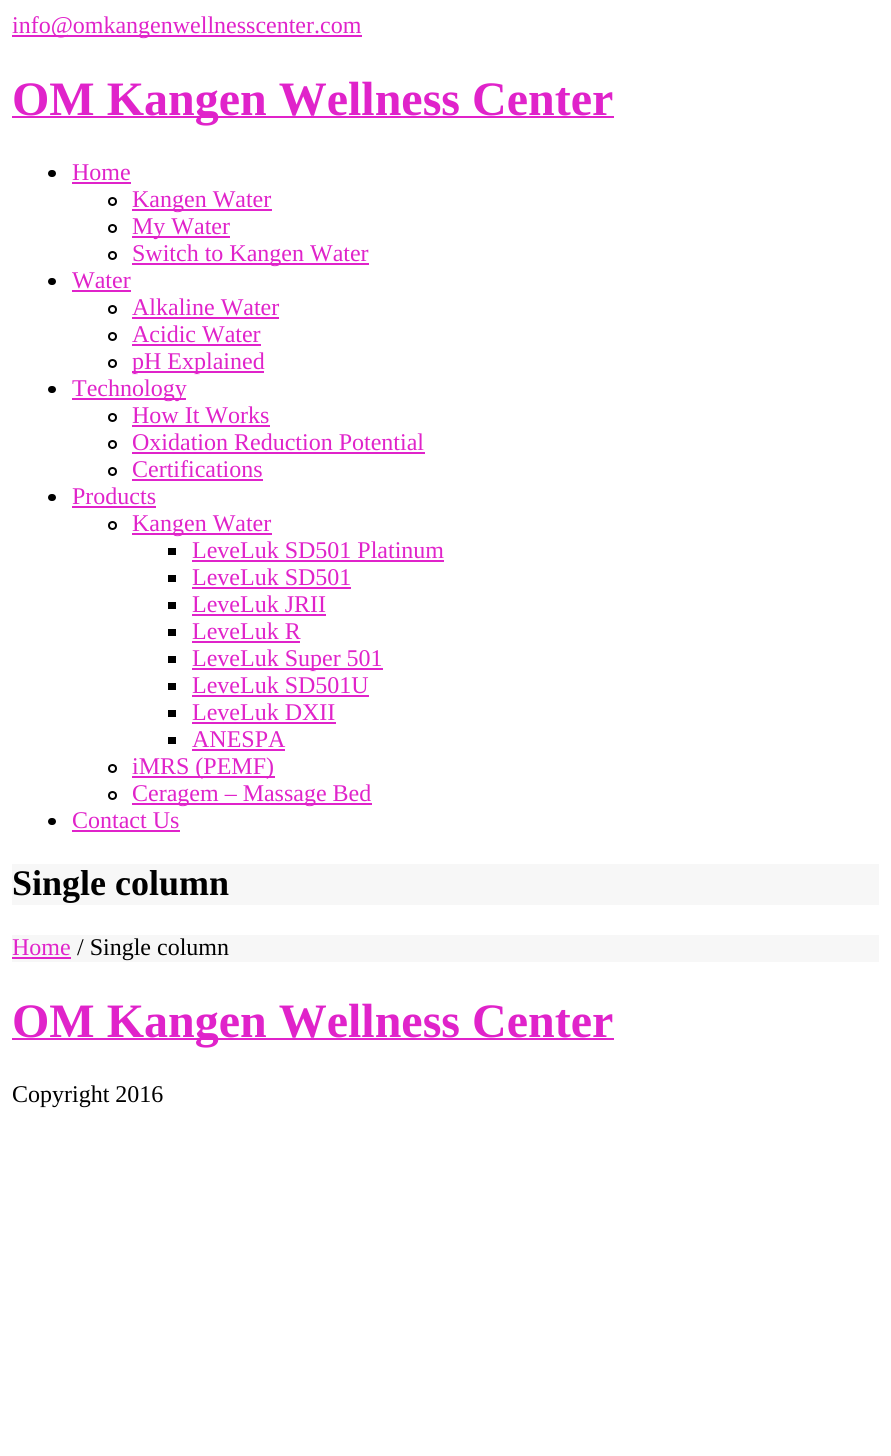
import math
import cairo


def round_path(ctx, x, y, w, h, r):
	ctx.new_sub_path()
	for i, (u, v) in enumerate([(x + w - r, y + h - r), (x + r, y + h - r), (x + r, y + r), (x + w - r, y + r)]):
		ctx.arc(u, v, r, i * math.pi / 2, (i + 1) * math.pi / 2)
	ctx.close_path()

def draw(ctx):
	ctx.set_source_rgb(1, 1, 1)
	ctx.paint()
	ctx.set_source_rgb(0.878, 0.137, 0.792)
	ctx.rectangle(12, 35, 350, 2)
	ctx.fill()
	ctx.select_font_face('Liberation Serif')
	ctx.set_font_size(24)
	ctx.move_to(12, 33)
	ctx.show_text('info@omkangenwellnesscenter.com')
	ctx.rectangle(12, 116, 602, 2)
	ctx.fill()
	ctx.select_font_face('Liberation Serif', cairo.FONT_SLANT_NORMAL, cairo.FONT_WEIGHT_BOLD)
	ctx.set_font_size(48)
	ctx.move_to(12, 115)
	ctx.show_text('OM Kangen Wellness Center')
	ctx.set_source_rgb(0, 0, 0)
	round_path(ctx, 48, 170, 8, 7, 3.5)
	ctx.fill()
	ctx.select_font_face('Liberation Serif')
	ctx.set_font_size(24)
	ctx.set_source_rgb(0.878, 0.137, 0.792)
	ctx.move_to(72, 180)
	ctx.show_text('Home')
	ctx.rectangle(72, 182, 59, 2)
	ctx.fill()
	ctx.arc(112.5, 201.5, 3.5, 0, 2 * math.pi)
	ctx.set_source_rgb(0, 0, 0)
	ctx.stroke()
	ctx.set_source_rgb(0.878, 0.137, 0.792)
	ctx.rectangle(132, 209, 140, 2)
	ctx.fill()
	ctx.move_to(132, 207)
	ctx.show_text('Kangen Water')
	ctx.new_path()
	ctx.arc(112.5, 228.5, 3.5, 0, 2 * math.pi)
	ctx.set_source_rgb(0, 0, 0)
	ctx.stroke()
	ctx.set_source_rgb(0.878, 0.137, 0.792)
	ctx.rectangle(132, 236, 98, 2)
	ctx.fill()
	ctx.move_to(132, 234)
	ctx.show_text('My Water')
	ctx.new_path()
	ctx.arc(112.5, 255.5, 3.5, 0, 2 * math.pi)
	ctx.set_source_rgb(0, 0, 0)
	ctx.stroke()
	ctx.set_source_rgb(0.878, 0.137, 0.792)
	ctx.rectangle(132, 263, 237, 2)
	ctx.fill()
	ctx.move_to(132, 261)
	ctx.show_text('Switch to Kangen Water')
	ctx.set_source_rgb(0, 0, 0)
	round_path(ctx, 48, 278, 8, 7, 3.5)
	ctx.fill()
	ctx.set_source_rgb(0.878, 0.137, 0.792)
	ctx.move_to(72, 288)
	ctx.show_text('Water')
	ctx.rectangle(72, 290, 59, 2)
	ctx.fill()
	ctx.arc(112.5, 309.5, 3.5, 0, 2 * math.pi)
	ctx.set_source_rgb(0, 0, 0)
	ctx.stroke()
	ctx.set_source_rgb(0.878, 0.137, 0.792)
	ctx.move_to(132, 315)
	ctx.show_text('Alkaline Water')
	ctx.rectangle(132, 317, 147, 2)
	ctx.fill()
	ctx.arc(112.5, 336.5, 3.5, 0, 2 * math.pi)
	ctx.set_source_rgb(0, 0, 0)
	ctx.stroke()
	ctx.set_source_rgb(0.878, 0.137, 0.792)
	ctx.move_to(132, 342)
	ctx.show_text('Acidic Water')
	ctx.rectangle(132, 344, 129, 2)
	ctx.fill()
	ctx.arc(112.5, 363.5, 3.5, 0, 2 * math.pi)
	ctx.set_source_rgb(0, 0, 0)
	ctx.stroke()
	ctx.set_source_rgb(0.878, 0.137, 0.792)
	ctx.rectangle(132, 371, 132, 2)
	ctx.fill()
	ctx.move_to(132, 369)
	ctx.show_text('pH Explained')
	ctx.set_source_rgb(0, 0, 0)
	round_path(ctx, 48, 386, 8, 7, 3.5)
	ctx.fill()
	ctx.set_source_rgb(0.878, 0.137, 0.792)
	ctx.rectangle(72, 398, 114, 2)
	ctx.fill()
	ctx.move_to(72, 396)
	ctx.show_text('Technology')
	ctx.new_path()
	ctx.arc(112.5, 417.5, 3.5, 0, 2 * math.pi)
	ctx.set_source_rgb(0, 0, 0)
	ctx.stroke()
	ctx.set_source_rgb(0.878, 0.137, 0.792)
	ctx.move_to(132, 423)
	ctx.show_text('How It Works')
	ctx.rectangle(132, 425, 138, 2)
	ctx.fill()
	ctx.arc(112.5, 444.5, 3.5, 0, 2 * math.pi)
	ctx.set_source_rgb(0, 0, 0)
	ctx.stroke()
	ctx.set_source_rgb(0.878, 0.137, 0.792)
	ctx.move_to(132, 450)
	ctx.show_text('Oxidation Reduction Potential')
	ctx.rectangle(132, 452, 293, 2)
	ctx.fill()
	ctx.arc(112.5, 471.5, 3.5, 0, 2 * math.pi)
	ctx.set_source_rgb(0, 0, 0)
	ctx.stroke()
	ctx.set_source_rgb(0.878, 0.137, 0.792)
	ctx.move_to(132, 477)
	ctx.show_text('Certifications')
	ctx.rectangle(132, 479, 131, 2)
	ctx.fill()
	ctx.set_source_rgb(0, 0, 0)
	round_path(ctx, 48, 494, 8, 7, 3.5)
	ctx.fill()
	ctx.set_source_rgb(0.878, 0.137, 0.792)
	ctx.move_to(72, 504)
	ctx.show_text('Products')
	ctx.rectangle(72, 506, 84, 2)
	ctx.fill()
	ctx.arc(112.5, 525.5, 3.5, 0, 2 * math.pi)
	ctx.set_source_rgb(0, 0, 0)
	ctx.stroke()
	ctx.set_source_rgb(0.878, 0.137, 0.792)
	ctx.rectangle(132, 533, 140, 2)
	ctx.fill()
	ctx.move_to(132, 531)
	ctx.show_text('Kangen Water')
	ctx.set_source_rgb(0, 0, 0)
	ctx.rectangle(168, 548, 8, 7)
	ctx.fill()
	ctx.set_source_rgb(0.878, 0.137, 0.792)
	ctx.move_to(192, 558)
	ctx.show_text('LeveLuk SD501 Platinum')
	ctx.rectangle(192, 560, 252, 2)
	ctx.fill()
	ctx.set_source_rgb(0, 0, 0)
	ctx.rectangle(168, 575, 8, 7)
	ctx.fill()
	ctx.set_source_rgb(0.878, 0.137, 0.792)
	ctx.move_to(192, 585)
	ctx.show_text('LeveLuk SD501')
	ctx.rectangle(192, 587, 159, 2)
	ctx.fill()
	ctx.set_source_rgb(0, 0, 0)
	ctx.rectangle(168, 602, 8, 7)
	ctx.fill()
	ctx.set_source_rgb(0.878, 0.137, 0.792)
	ctx.move_to(192, 612)
	ctx.show_text('LeveLuk JRII')
	ctx.rectangle(192, 614, 134, 2)
	ctx.fill()
	ctx.set_source_rgb(0, 0, 0)
	ctx.rectangle(168, 629, 8, 7)
	ctx.fill()
	ctx.set_source_rgb(0.878, 0.137, 0.792)
	ctx.move_to(192, 639)
	ctx.show_text('LeveLuk R')
	ctx.rectangle(192, 641, 108, 2)
	ctx.fill()
	ctx.set_source_rgb(0, 0, 0)
	ctx.rectangle(168, 656, 8, 7)
	ctx.fill()
	ctx.set_source_rgb(0.878, 0.137, 0.792)
	ctx.rectangle(192, 668, 191, 2)
	ctx.fill()
	ctx.move_to(192, 666)
	ctx.show_text('LeveLuk Super 501')
	ctx.set_source_rgb(0, 0, 0)
	ctx.rectangle(168, 683, 8, 7)
	ctx.fill()
	ctx.set_source_rgb(0.878, 0.137, 0.792)
	ctx.move_to(192, 693)
	ctx.show_text('LeveLuk SD501U')
	ctx.rectangle(192, 695, 177, 2)
	ctx.fill()
	ctx.set_source_rgb(0, 0, 0)
	ctx.rectangle(168, 710, 8, 7)
	ctx.fill()
	ctx.set_source_rgb(0.878, 0.137, 0.792)
	ctx.move_to(192, 720)
	ctx.show_text('LeveLuk DXII')
	ctx.rectangle(192, 722, 144, 2)
	ctx.fill()
	ctx.set_source_rgb(0, 0, 0)
	ctx.rectangle(168, 737, 8, 7)
	ctx.fill()
	ctx.set_source_rgb(0.878, 0.137, 0.792)
	ctx.move_to(192, 747)
	ctx.show_text('ANESPA')
	ctx.rectangle(192, 749, 93, 2)
	ctx.fill()
	ctx.arc(112.5, 768.5, 3.5, 0, 2 * math.pi)
	ctx.set_source_rgb(0, 0, 0)
	ctx.stroke()
	ctx.set_source_rgb(0.878, 0.137, 0.792)
	ctx.rectangle(132, 776, 143, 2)
	ctx.fill()
	ctx.move_to(132, 774)
	ctx.show_text('iMRS (PEMF)')
	ctx.new_path()
	ctx.arc(112.5, 795.5, 3.5, 0, 2 * math.pi)
	ctx.set_source_rgb(0, 0, 0)
	ctx.stroke()
	ctx.set_source_rgb(0.878, 0.137, 0.792)
	ctx.rectangle(132, 803, 240, 2)
	ctx.fill()
	ctx.move_to(132, 801)
	ctx.show_text('Ceragem – Massage Bed')
	ctx.set_source_rgb(0, 0, 0)
	round_path(ctx, 48, 818, 8, 7, 3.5)
	ctx.fill()
	ctx.set_source_rgb(0.878, 0.137, 0.792)
	ctx.move_to(72, 828)
	ctx.show_text('Contact Us')
	ctx.rectangle(72, 830, 108, 2)
	ctx.fill()
	ctx.set_source_rgb(0.965, 0.965, 0.965)
	ctx.rectangle(12, 864, 867, 41)
	ctx.fill()
	ctx.select_font_face('Liberation Serif', cairo.FONT_SLANT_NORMAL, cairo.FONT_WEIGHT_BOLD)
	ctx.set_font_size(36)
	ctx.set_source_rgb(0, 0, 0)
	ctx.move_to(12, 895)
	ctx.show_text('Single column')
	ctx.set_source_rgb(0.965, 0.965, 0.965)
	ctx.rectangle(12, 935, 867, 27)
	ctx.fill()
	ctx.select_font_face('Liberation Serif')
	ctx.set_font_size(24)
	ctx.set_source_rgb(0.878, 0.137, 0.792)
	ctx.move_to(12, 955)
	ctx.show_text('Home')
	ctx.rectangle(12, 957, 59, 2)
	ctx.fill()
	ctx.set_source_rgb(0, 0, 0)
	ctx.move_to(77, 955)
	ctx.show_text('/ Single column')
	ctx.set_source_rgb(0.878, 0.137, 0.792)
	ctx.rectangle(12, 1038, 602, 2)
	ctx.fill()
	ctx.select_font_face('Liberation Serif', cairo.FONT_SLANT_NORMAL, cairo.FONT_WEIGHT_BOLD)
	ctx.set_font_size(48)
	ctx.move_to(12, 1037)
	ctx.show_text('OM Kangen Wellness Center')
	ctx.select_font_face('Liberation Serif')
	ctx.set_font_size(24)
	ctx.set_source_rgb(0, 0, 0)
	ctx.move_to(12, 1102)
	ctx.show_text('Copyright 2016')


surface = cairo.ImageSurface(cairo.FORMAT_RGB24, 891, 1456)
ctx = cairo.Context(surface)
options = cairo.FontOptions()
options.set_hint_metrics(cairo.HINT_METRICS_OFF)
options.set_hint_style(cairo.HINT_STYLE_NONE)
ctx.set_font_options(options)
ctx.set_miter_limit(4)
draw(ctx)
surface.write_to_png('image.png')
